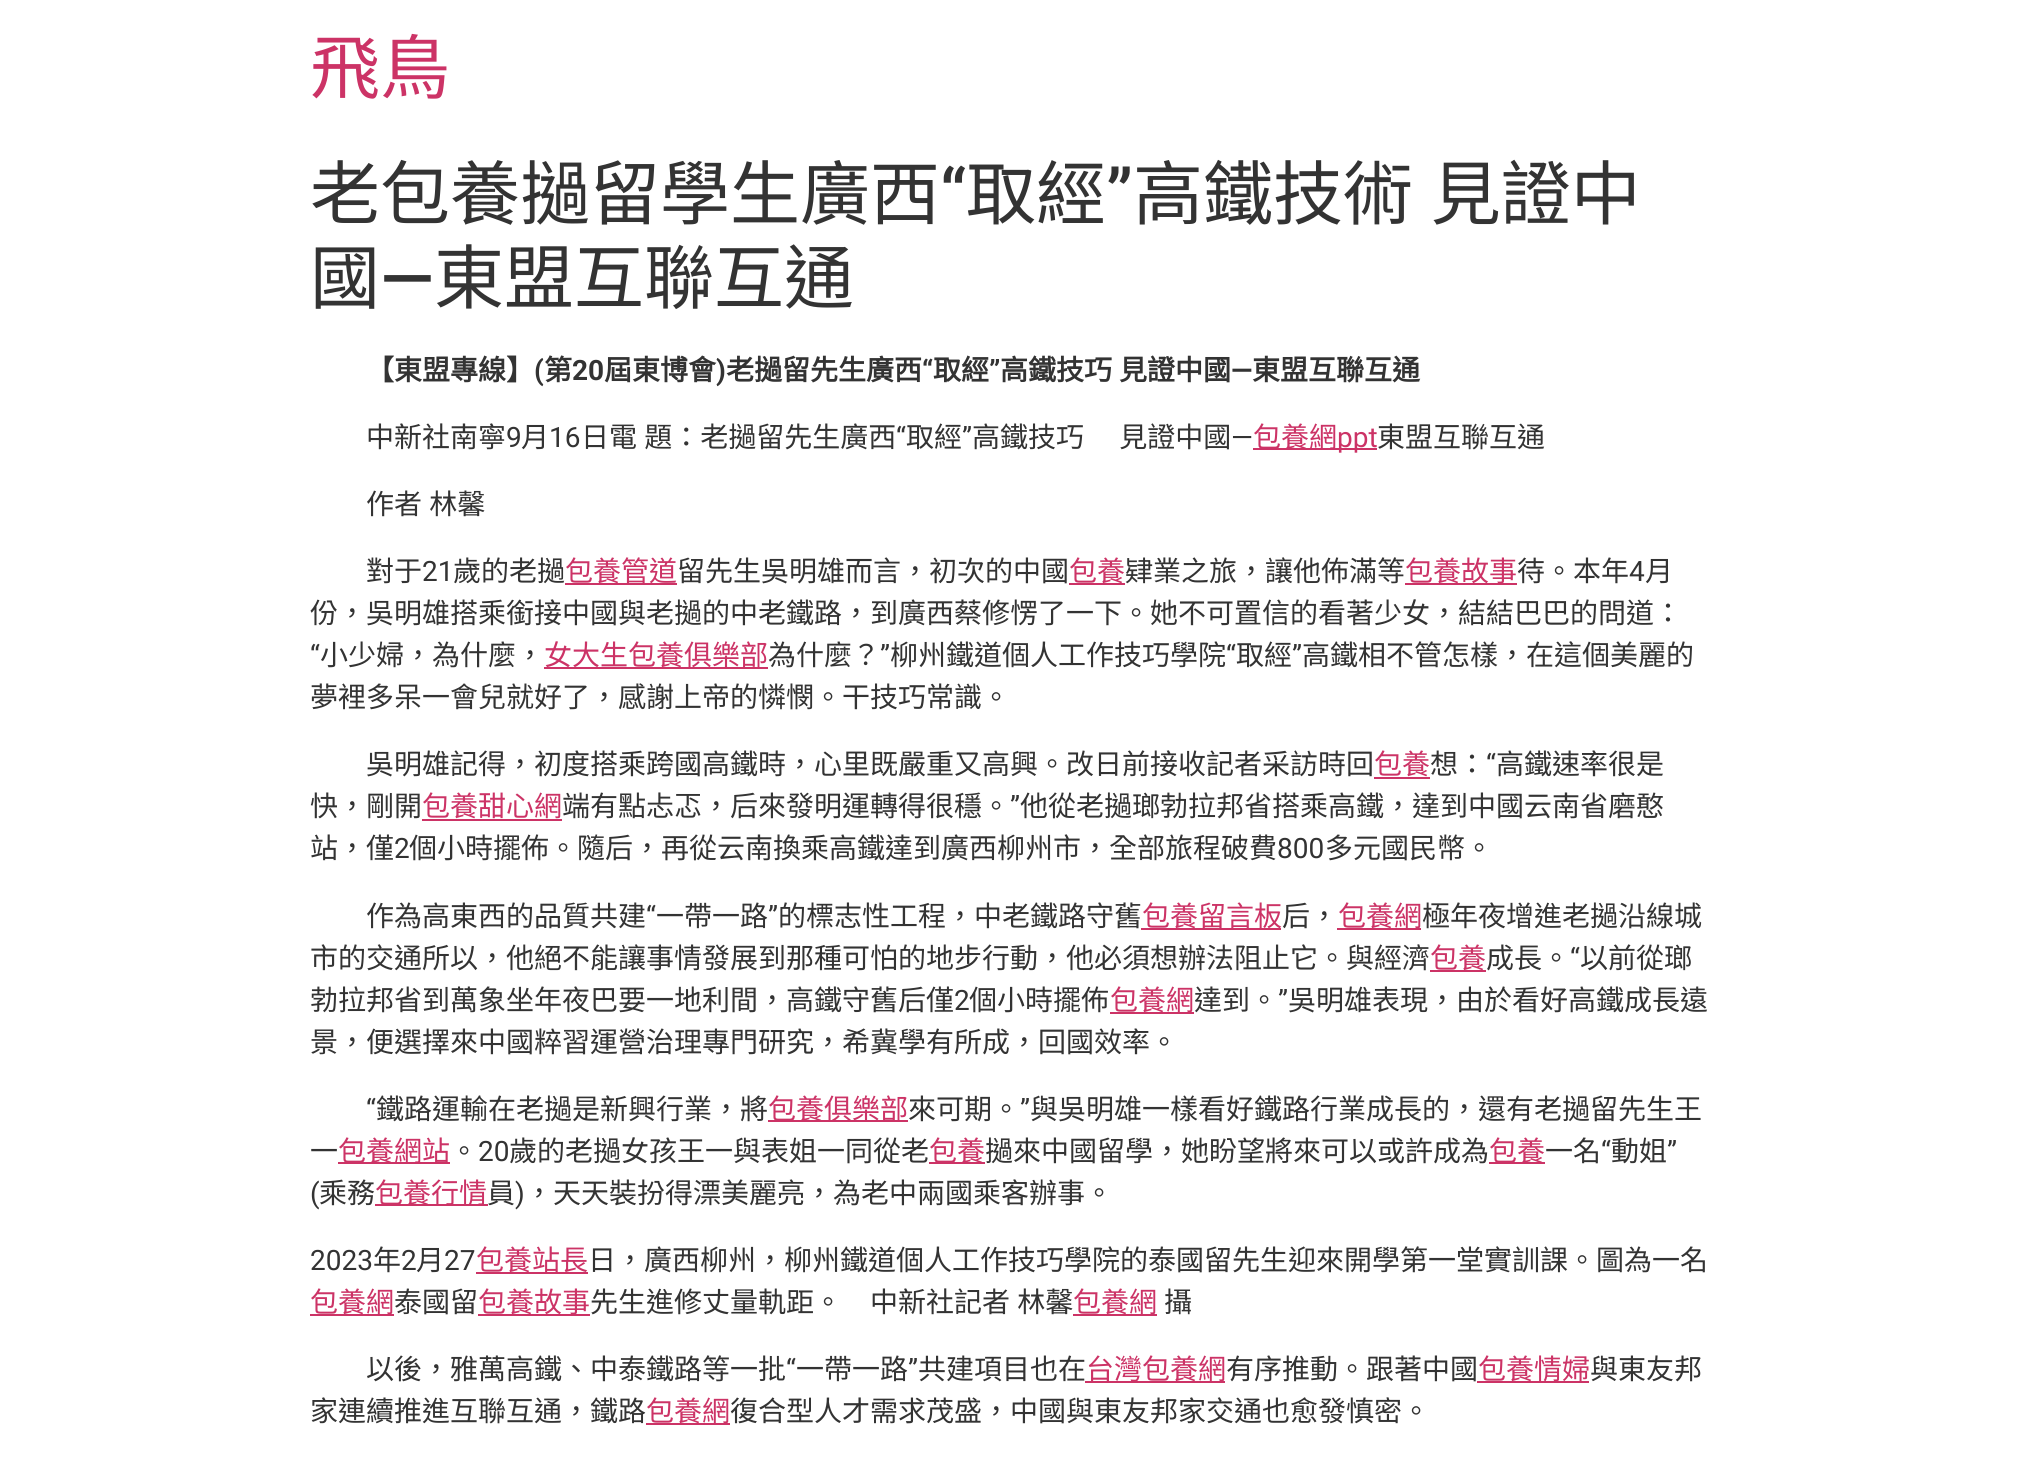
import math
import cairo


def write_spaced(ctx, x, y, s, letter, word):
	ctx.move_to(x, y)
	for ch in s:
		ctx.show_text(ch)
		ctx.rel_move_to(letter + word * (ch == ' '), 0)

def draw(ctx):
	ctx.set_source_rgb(1, 1, 1)
	ctx.paint()
	ctx.select_font_face('Noto Sans CJK TC')
	ctx.set_font_size(70)
	ctx.set_source_rgb(0.8, 0.2, 0.4)
	ctx.move_to(310, 93)
	ctx.show_text('飛鳥')
	ctx.set_source_rgb(0.2, 0.2, 0.2)
	ctx.move_to(310, 219)
	ctx.show_text('老包養撾留學生廣西')
	ctx.select_font_face('Roboto Medium')
	ctx.move_to(940, 219)
	ctx.show_text('“')
	ctx.select_font_face('Noto Sans CJK TC')
	ctx.move_to(966, 219)
	ctx.show_text('取經')
	ctx.select_font_face('Roboto Medium')
	ctx.move_to(1106, 219)
	ctx.show_text('”')
	ctx.select_font_face('Noto Sans CJK TC')
	write_spaced(ctx, 1133, 219, '高鐵技術 見證中', 0, 2)
	ctx.move_to(310, 303)
	ctx.show_text('國')
	ctx.select_font_face('Roboto Medium')
	ctx.move_to(380, 303)
	ctx.show_text('—')
	ctx.select_font_face('Noto Sans CJK TC')
	ctx.move_to(434, 303)
	ctx.show_text('東盟互聯互通')
	ctx.select_font_face('Noto Sans CJK TC', cairo.FONT_SLANT_NORMAL, cairo.FONT_WEIGHT_BOLD)
	ctx.set_font_size(28)
	ctx.move_to(366, 380)
	ctx.show_text('【東盟專線】')
	ctx.select_font_face('Roboto', cairo.FONT_SLANT_NORMAL, cairo.FONT_WEIGHT_BOLD)
	ctx.move_to(534, 380)
	ctx.show_text('(')
	ctx.select_font_face('Noto Sans CJK TC', cairo.FONT_SLANT_NORMAL, cairo.FONT_WEIGHT_BOLD)
	ctx.move_to(544, 380)
	ctx.show_text('第')
	ctx.select_font_face('Roboto', cairo.FONT_SLANT_NORMAL, cairo.FONT_WEIGHT_BOLD)
	ctx.move_to(572, 380)
	ctx.show_text('20')
	ctx.select_font_face('Noto Sans CJK TC', cairo.FONT_SLANT_NORMAL, cairo.FONT_WEIGHT_BOLD)
	ctx.move_to(604, 380)
	ctx.show_text('屆東博會')
	ctx.select_font_face('Roboto', cairo.FONT_SLANT_NORMAL, cairo.FONT_WEIGHT_BOLD)
	ctx.move_to(716, 380)
	ctx.show_text(')')
	ctx.select_font_face('Noto Sans CJK TC', cairo.FONT_SLANT_NORMAL, cairo.FONT_WEIGHT_BOLD)
	ctx.move_to(726, 380)
	ctx.show_text('老撾留先生廣西')
	ctx.select_font_face('Roboto', cairo.FONT_SLANT_NORMAL, cairo.FONT_WEIGHT_BOLD)
	ctx.move_to(922, 380)
	ctx.show_text('“')
	ctx.select_font_face('Noto Sans CJK TC', cairo.FONT_SLANT_NORMAL, cairo.FONT_WEIGHT_BOLD)
	ctx.move_to(933, 380)
	ctx.show_text('取經')
	ctx.select_font_face('Roboto', cairo.FONT_SLANT_NORMAL, cairo.FONT_WEIGHT_BOLD)
	ctx.move_to(989, 380)
	ctx.show_text('”')
	ctx.select_font_face('Noto Sans CJK TC', cairo.FONT_SLANT_NORMAL, cairo.FONT_WEIGHT_BOLD)
	for x, y, s in [
		(1000, 380, '高鐵技巧'),
		(1119, 380, '見證中國'),
		(1252, 380, '東盟互聯互通'),
	]:
		ctx.move_to(x, y)
		ctx.show_text(s)
	ctx.select_font_face('Roboto', cairo.FONT_SLANT_NORMAL, cairo.FONT_WEIGHT_BOLD)
	ctx.move_to(1231, 380)
	ctx.show_text('—')
	ctx.select_font_face('Noto Sans CJK TC')
	ctx.move_to(366, 447)
	ctx.show_text('中新社南寧')
	ctx.select_font_face('Roboto')
	ctx.move_to(506, 447)
	ctx.show_text('9')
	ctx.select_font_face('Noto Sans CJK TC')
	ctx.move_to(521, 447)
	ctx.show_text('月')
	ctx.select_font_face('Roboto')
	ctx.move_to(549, 447)
	ctx.show_text('16')
	ctx.select_font_face('Noto Sans CJK TC')
	write_spaced(ctx, 581, 447, '日電 題：老撾留先生廣西', 0, 1)
	ctx.select_font_face('Roboto')
	ctx.move_to(896, 447)
	ctx.show_text('“')
	ctx.select_font_face('Noto Sans CJK TC')
	ctx.move_to(906, 447)
	ctx.show_text('取經')
	ctx.select_font_face('Roboto')
	ctx.move_to(962, 447)
	ctx.show_text('”')
	ctx.select_font_face('Noto Sans CJK TC')
	write_spaced(ctx, 972, 447, '高鐵技巧 　見證中國', 0, 1)
	ctx.select_font_face('Roboto')
	ctx.move_to(1231, 447)
	ctx.show_text('—')
	ctx.set_source_rgb(0.8, 0.2, 0.4)
	ctx.rectangle(1253, 448, 124, 2)
	ctx.fill()
	ctx.select_font_face('Noto Sans CJK TC')
	ctx.move_to(1253, 447)
	ctx.show_text('包養網')
	ctx.select_font_face('Roboto')
	ctx.move_to(1337, 447)
	ctx.show_text('ppt')
	ctx.select_font_face('Noto Sans CJK TC')
	ctx.set_source_rgb(0.2, 0.2, 0.2)
	ctx.move_to(1377, 447)
	ctx.show_text('東盟互聯互通')
	write_spaced(ctx, 366, 514, '作者 林馨', 0, 1)
	ctx.move_to(366, 581)
	ctx.show_text('對于')
	ctx.select_font_face('Roboto')
	ctx.move_to(422, 581)
	ctx.show_text('21')
	ctx.select_font_face('Noto Sans CJK TC')
	ctx.move_to(453, 581)
	ctx.show_text('歲的老撾')
	ctx.set_source_rgb(0.8, 0.2, 0.4)
	ctx.rectangle(565, 583, 112, 2)
	ctx.fill()
	ctx.move_to(565, 581)
	ctx.show_text('包養管道')
	ctx.set_source_rgb(0.2, 0.2, 0.2)
	ctx.move_to(677, 581)
	ctx.show_text('留先生吳明雄而言，初次的中國')
	ctx.set_source_rgb(0.8, 0.2, 0.4)
	ctx.rectangle(1069, 583, 56, 2)
	ctx.fill()
	ctx.move_to(1069, 581)
	ctx.show_text('包養')
	ctx.set_source_rgb(0.2, 0.2, 0.2)
	ctx.move_to(1125, 581)
	ctx.show_text('肄業之旅，讓他佈滿等')
	ctx.set_source_rgb(0.8, 0.2, 0.4)
	ctx.rectangle(1405, 583, 112, 2)
	ctx.fill()
	ctx.move_to(1405, 581)
	ctx.show_text('包養故事')
	ctx.set_source_rgb(0.2, 0.2, 0.2)
	ctx.move_to(1517, 581)
	ctx.show_text('待。本年')
	ctx.select_font_face('Roboto')
	ctx.move_to(1629, 581)
	ctx.show_text('4')
	ctx.select_font_face('Noto Sans CJK TC')
	ctx.move_to(1645, 581)
	ctx.show_text('月')
	ctx.move_to(310, 623)
	ctx.show_text('份，吳明雄搭乘銜接中國與老撾的中老鐵路，到廣西蔡修愣了一下。她不可置信的看著少女，結結巴巴的問道：')
	ctx.select_font_face('Roboto')
	ctx.move_to(310, 665)
	ctx.show_text('“')
	ctx.select_font_face('Noto Sans CJK TC')
	ctx.move_to(320, 665)
	ctx.show_text('小少婦，為什麼，')
	ctx.set_source_rgb(0.8, 0.2, 0.4)
	ctx.rectangle(544, 667, 224, 2)
	ctx.fill()
	ctx.move_to(544, 665)
	ctx.show_text('女大生包養俱樂部')
	ctx.set_source_rgb(0.2, 0.2, 0.2)
	ctx.move_to(768, 665)
	ctx.show_text('為什麼？')
	ctx.select_font_face('Roboto')
	ctx.move_to(880, 665)
	ctx.show_text('”')
	ctx.select_font_face('Noto Sans CJK TC')
	ctx.move_to(890, 665)
	ctx.show_text('柳州鐵道個人工作技巧學院')
	ctx.select_font_face('Roboto')
	ctx.move_to(1226, 665)
	ctx.show_text('“')
	ctx.select_font_face('Noto Sans CJK TC')
	ctx.move_to(1236, 665)
	ctx.show_text('取經')
	ctx.select_font_face('Roboto')
	ctx.move_to(1292, 665)
	ctx.show_text('”')
	ctx.select_font_face('Noto Sans CJK TC')
	for x, y, s in [
		(1302, 665, '高鐵相不管怎樣，在這個美麗的'),
		(310, 707, '夢裡多呆一會兒就好了，感謝上帝的憐憫。干技巧常識。'),
		(366, 774, '吳明雄記得，初度搭乘跨國高鐵時，心里既嚴重又高興。改日前接收記者采訪時回'),
	]:
		ctx.move_to(x, y)
		ctx.show_text(s)
	ctx.set_source_rgb(0.8, 0.2, 0.4)
	ctx.move_to(1374, 774)
	ctx.show_text('包養')
	ctx.rectangle(1374, 777, 56, 2)
	ctx.fill()
	ctx.set_source_rgb(0.2, 0.2, 0.2)
	ctx.move_to(1430, 774)
	ctx.show_text('想：')
	ctx.select_font_face('Roboto')
	ctx.move_to(1486, 774)
	ctx.show_text('“')
	ctx.select_font_face('Noto Sans CJK TC')
	ctx.move_to(1496, 774)
	ctx.show_text('高鐵速率很是')
	ctx.move_to(310, 816)
	ctx.show_text('快，剛開')
	ctx.set_source_rgb(0.8, 0.2, 0.4)
	ctx.move_to(422, 816)
	ctx.show_text('包養甜心網')
	ctx.rectangle(422, 819, 140, 2)
	ctx.fill()
	ctx.set_source_rgb(0.2, 0.2, 0.2)
	ctx.move_to(562, 816)
	ctx.show_text('端有點忐忑，后來發明運轉得很穩。')
	ctx.select_font_face('Roboto')
	ctx.move_to(1010, 816)
	ctx.show_text('”')
	ctx.select_font_face('Noto Sans CJK TC')
	ctx.move_to(1020, 816)
	ctx.show_text('他從老撾瑯勃拉邦省搭乘高鐵，達到中國云南省磨憨')
	ctx.move_to(310, 858)
	ctx.show_text('站，僅')
	ctx.select_font_face('Roboto')
	ctx.move_to(394, 858)
	ctx.show_text('2')
	ctx.select_font_face('Noto Sans CJK TC')
	ctx.move_to(409, 858)
	ctx.show_text('個小時擺佈。隨后，再從云南換乘高鐵達到廣西柳州市，全部旅程破費')
	ctx.select_font_face('Roboto')
	ctx.move_to(1277, 858)
	ctx.show_text('800')
	ctx.select_font_face('Noto Sans CJK TC')
	ctx.move_to(1325, 858)
	ctx.show_text('多元國民幣。')
	ctx.move_to(366, 926)
	ctx.show_text('作為高東西的品質共建')
	ctx.select_font_face('Roboto')
	ctx.move_to(646, 926)
	ctx.show_text('“')
	ctx.select_font_face('Noto Sans CJK TC')
	ctx.move_to(656, 926)
	ctx.show_text('一帶一路')
	ctx.select_font_face('Roboto')
	ctx.move_to(768, 926)
	ctx.show_text('”')
	ctx.select_font_face('Noto Sans CJK TC')
	ctx.move_to(778, 926)
	ctx.show_text('的標志性工程，中老鐵路守舊')
	ctx.set_source_rgb(0.8, 0.2, 0.4)
	ctx.rectangle(1141, 928, 140, 2)
	ctx.fill()
	ctx.move_to(1142, 926)
	ctx.show_text('包養留言板')
	ctx.set_source_rgb(0.2, 0.2, 0.2)
	ctx.move_to(1282, 926)
	ctx.show_text('后，')
	ctx.set_source_rgb(0.8, 0.2, 0.4)
	ctx.rectangle(1337, 928, 84, 2)
	ctx.fill()
	ctx.move_to(1338, 926)
	ctx.show_text('包養網')
	ctx.set_source_rgb(0.2, 0.2, 0.2)
	ctx.move_to(1422, 926)
	ctx.show_text('極年夜增進老撾沿線城')
	ctx.move_to(310, 968)
	ctx.show_text('市的交通所以，他絕不能讓事情發展到那種可怕的地步行動，他必須想辦法阻止它。與經濟')
	ctx.set_source_rgb(0.8, 0.2, 0.4)
	ctx.rectangle(1430, 970, 56, 2)
	ctx.fill()
	ctx.move_to(1430, 968)
	ctx.show_text('包養')
	ctx.set_source_rgb(0.2, 0.2, 0.2)
	ctx.move_to(1486, 968)
	ctx.show_text('成長。')
	ctx.select_font_face('Roboto')
	ctx.move_to(1570, 968)
	ctx.show_text('“')
	ctx.select_font_face('Noto Sans CJK TC')
	ctx.move_to(1580, 968)
	ctx.show_text('以前從瑯')
	ctx.move_to(310, 1010)
	ctx.show_text('勃拉邦省到萬象坐年夜巴要一地利間，高鐵守舊后僅')
	ctx.select_font_face('Roboto')
	ctx.move_to(954, 1010)
	ctx.show_text('2')
	ctx.select_font_face('Noto Sans CJK TC')
	ctx.move_to(969, 1010)
	ctx.show_text('個小時擺佈')
	ctx.set_source_rgb(0.8, 0.2, 0.4)
	ctx.rectangle(1110, 1012, 84, 2)
	ctx.fill()
	ctx.move_to(1110, 1010)
	ctx.show_text('包養網')
	ctx.set_source_rgb(0.2, 0.2, 0.2)
	ctx.move_to(1194, 1010)
	ctx.show_text('達到。')
	ctx.select_font_face('Roboto')
	ctx.move_to(1278, 1010)
	ctx.show_text('”')
	ctx.select_font_face('Noto Sans CJK TC')
	ctx.move_to(1288, 1010)
	ctx.show_text('吳明雄表現，由於看好高鐵成長遠')
	ctx.move_to(310, 1052)
	ctx.show_text('景，便選擇來中國粹習運營治理專門研究，希冀學有所成，回國效率。')
	ctx.select_font_face('Roboto')
	ctx.move_to(366, 1119)
	ctx.show_text('“')
	ctx.select_font_face('Noto Sans CJK TC')
	ctx.move_to(376, 1119)
	ctx.show_text('鐵路運輸在老撾是新興行業，將')
	ctx.set_source_rgb(0.8, 0.2, 0.4)
	ctx.rectangle(768, 1120, 140, 2)
	ctx.fill()
	ctx.move_to(768, 1119)
	ctx.show_text('包養俱樂部')
	ctx.set_source_rgb(0.2, 0.2, 0.2)
	ctx.move_to(908, 1119)
	ctx.show_text('來可期。')
	ctx.select_font_face('Roboto')
	ctx.move_to(1020, 1119)
	ctx.show_text('”')
	ctx.select_font_face('Noto Sans CJK TC')
	ctx.move_to(1030, 1119)
	ctx.show_text('與吳明雄一樣看好鐵路行業成長的，還有老撾留先生王')
	ctx.set_source_rgb(0.8, 0.2, 0.4)
	ctx.rectangle(338, 1162, 112, 2)
	ctx.fill()
	ctx.move_to(338, 1161)
	ctx.show_text('包養網站')
	ctx.select_font_face('Roboto')
	ctx.set_source_rgb(0.2, 0.2, 0.2)
	ctx.move_to(478, 1161)
	ctx.show_text('20')
	ctx.select_font_face('Noto Sans CJK TC')
	ctx.move_to(509, 1161)
	ctx.show_text('歲的老撾女孩王一與表姐一同從老')
	ctx.set_source_rgb(0.8, 0.2, 0.4)
	ctx.rectangle(929, 1162, 56, 2)
	ctx.fill()
	ctx.move_to(929, 1161)
	ctx.show_text('包養')
	ctx.set_source_rgb(0.2, 0.2, 0.2)
	ctx.move_to(985, 1161)
	ctx.show_text('撾來中國留學，她盼望將來可以或許成為')
	ctx.set_source_rgb(0.8, 0.2, 0.4)
	ctx.rectangle(1489, 1162, 56, 2)
	ctx.fill()
	ctx.move_to(1489, 1161)
	ctx.show_text('包養')
	ctx.set_source_rgb(0.2, 0.2, 0.2)
	ctx.move_to(1545, 1161)
	ctx.show_text('一名')
	ctx.select_font_face('Roboto')
	ctx.move_to(1601, 1161)
	ctx.show_text('“')
	ctx.select_font_face('Noto Sans CJK TC')
	ctx.move_to(1611, 1161)
	ctx.show_text('動姐')
	ctx.select_font_face('Roboto')
	ctx.move_to(1667, 1161)
	ctx.show_text('”')
	ctx.select_font_face('Noto Sans CJK TC')
	ctx.move_to(310, 1161)
	ctx.show_text('一')
	ctx.move_to(450, 1161)
	ctx.show_text('。')
	ctx.select_font_face('Roboto')
	ctx.move_to(310, 1203)
	ctx.show_text('(')
	ctx.select_font_face('Noto Sans CJK TC')
	ctx.move_to(319, 1203)
	ctx.show_text('乘務')
	ctx.set_source_rgb(0.8, 0.2, 0.4)
	ctx.rectangle(375, 1204, 113, 2)
	ctx.fill()
	ctx.move_to(375, 1203)
	ctx.show_text('包養行情')
	ctx.set_source_rgb(0.2, 0.2, 0.2)
	ctx.move_to(487, 1203)
	ctx.show_text('員')
	ctx.select_font_face('Roboto')
	ctx.move_to(515, 1203)
	ctx.show_text(')')
	ctx.select_font_face('Noto Sans CJK TC')
	ctx.move_to(525, 1203)
	ctx.show_text('，天天裝扮得漂美麗亮，為老中兩國乘客辦事。')
	ctx.select_font_face('Roboto')
	ctx.move_to(310, 1270)
	ctx.show_text('2023')
	ctx.select_font_face('Noto Sans CJK TC')
	ctx.move_to(373, 1270)
	ctx.show_text('年')
	ctx.select_font_face('Roboto')
	ctx.move_to(401, 1270)
	ctx.show_text('2')
	ctx.select_font_face('Noto Sans CJK TC')
	ctx.move_to(416, 1270)
	ctx.show_text('月')
	ctx.select_font_face('Roboto')
	ctx.move_to(444, 1270)
	ctx.show_text('27')
	ctx.set_source_rgb(0.8, 0.2, 0.4)
	ctx.rectangle(476, 1272, 112, 2)
	ctx.fill()
	ctx.select_font_face('Noto Sans CJK TC')
	ctx.move_to(476, 1270)
	ctx.show_text('包養站長')
	ctx.set_source_rgb(0.2, 0.2, 0.2)
	ctx.move_to(588, 1270)
	ctx.show_text('日，廣西柳州，柳州鐵道個人工作技巧學院的泰國留先生迎來開學第一堂實訓課。圖為一名')
	ctx.set_source_rgb(0.8, 0.2, 0.4)
	ctx.rectangle(310, 1314, 84, 2)
	ctx.fill()
	ctx.move_to(310, 1312)
	ctx.show_text('包養網')
	ctx.set_source_rgb(0.2, 0.2, 0.2)
	ctx.move_to(394, 1312)
	ctx.show_text('泰國留')
	ctx.set_source_rgb(0.8, 0.2, 0.4)
	ctx.rectangle(478, 1314, 112, 2)
	ctx.fill()
	ctx.move_to(478, 1312)
	ctx.show_text('包養故事')
	ctx.set_source_rgb(0.2, 0.2, 0.2)
	write_spaced(ctx, 590, 1312, '先生進修丈量軌距。　中新社記者 林馨', 0, 1)
	ctx.set_source_rgb(0.8, 0.2, 0.4)
	ctx.rectangle(1073, 1314, 84, 2)
	ctx.fill()
	ctx.move_to(1073, 1312)
	ctx.show_text('包養網')
	ctx.set_source_rgb(0.2, 0.2, 0.2)
	ctx.move_to(1164, 1312)
	ctx.show_text('攝')
	ctx.move_to(366, 1379)
	ctx.show_text('以後，雅萬高鐵、中泰鐵路等一批')
	ctx.select_font_face('Roboto')
	ctx.move_to(786, 1379)
	ctx.show_text('“')
	ctx.select_font_face('Noto Sans CJK TC')
	ctx.move_to(796, 1379)
	ctx.show_text('一帶一路')
	ctx.select_font_face('Roboto')
	ctx.move_to(908, 1379)
	ctx.show_text('”')
	ctx.select_font_face('Noto Sans CJK TC')
	ctx.move_to(918, 1379)
	ctx.show_text('共建項目也在')
	ctx.set_source_rgb(0.8, 0.2, 0.4)
	ctx.rectangle(1085, 1381, 140, 2)
	ctx.fill()
	ctx.move_to(1086, 1379)
	ctx.show_text('台灣包養網')
	ctx.set_source_rgb(0.2, 0.2, 0.2)
	ctx.move_to(1226, 1379)
	ctx.show_text('有序推動。跟著中國')
	ctx.set_source_rgb(0.8, 0.2, 0.4)
	ctx.rectangle(1477, 1381, 112, 2)
	ctx.fill()
	ctx.move_to(1478, 1379)
	ctx.show_text('包養情婦')
	ctx.set_source_rgb(0.2, 0.2, 0.2)
	ctx.move_to(1590, 1379)
	ctx.show_text('與東友邦')
	ctx.move_to(310, 1421)
	ctx.show_text('家連續推進互聯互通，鐵路')
	ctx.set_source_rgb(0.8, 0.2, 0.4)
	ctx.rectangle(646, 1423, 84, 2)
	ctx.fill()
	ctx.move_to(646, 1421)
	ctx.show_text('包養網')
	ctx.set_source_rgb(0.2, 0.2, 0.2)
	ctx.move_to(730, 1421)
	ctx.show_text('復合型人才需求茂盛，中國與東友邦家交通也愈發慎密。')


surface = cairo.ImageSurface(cairo.FORMAT_RGB24, 2018, 1475)
ctx = cairo.Context(surface)
options = cairo.FontOptions()
options.set_hint_metrics(cairo.HINT_METRICS_OFF)
options.set_hint_style(cairo.HINT_STYLE_NONE)
ctx.set_font_options(options)
ctx.set_miter_limit(4)
draw(ctx)
surface.write_to_png('image.png')
